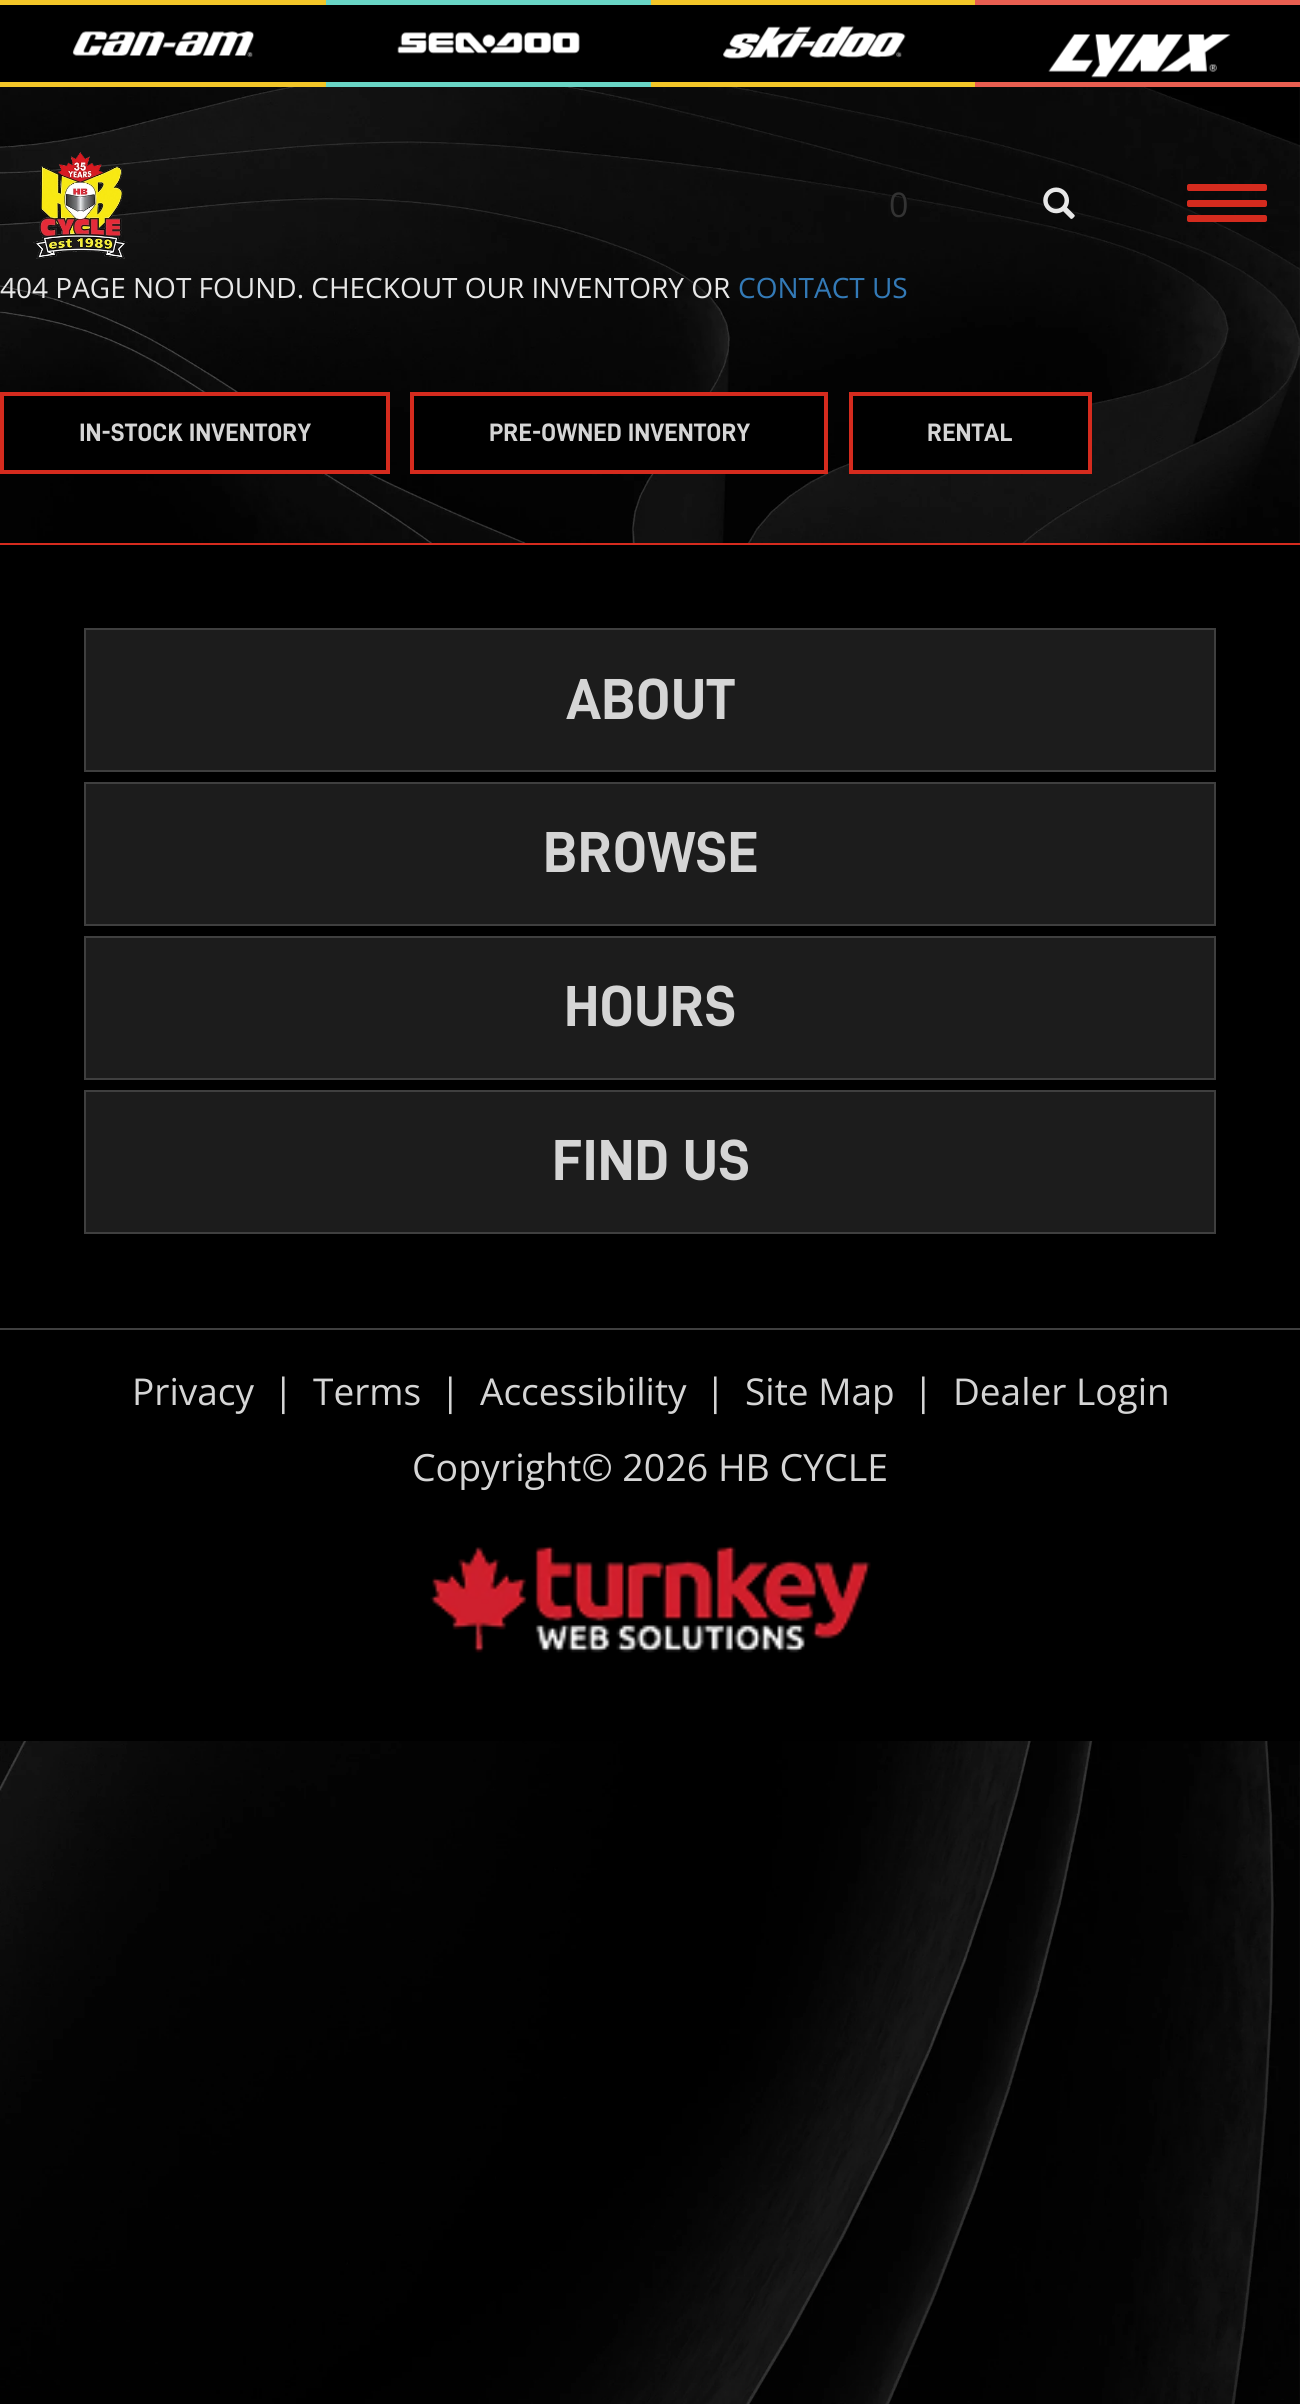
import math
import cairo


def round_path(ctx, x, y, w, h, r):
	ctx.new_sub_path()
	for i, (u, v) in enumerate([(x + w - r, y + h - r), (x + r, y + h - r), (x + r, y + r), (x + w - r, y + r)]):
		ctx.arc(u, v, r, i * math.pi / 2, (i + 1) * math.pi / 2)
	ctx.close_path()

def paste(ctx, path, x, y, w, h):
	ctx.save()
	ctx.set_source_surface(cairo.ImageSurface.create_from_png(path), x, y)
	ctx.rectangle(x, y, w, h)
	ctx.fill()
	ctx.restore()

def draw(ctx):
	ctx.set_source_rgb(1, 1, 1)
	ctx.paint()
	paste(ctx, 'media/1.png', 0, 87, 1300, 2317)
	ctx.set_source_rgb(0.953, 0.776, 0.157)
	ctx.rectangle(0, 0, 326, 5)
	ctx.rectangle(0, 82, 326, 5)
	ctx.fill()
	ctx.set_source_rgb(0, 0, 0)
	ctx.rectangle(0, 5, 1300, 77)
	ctx.fill()
	paste(ctx, 'media/2.png', 72, 31, 183, 27)
	ctx.set_source_rgb(0.412, 0.835, 0.773)
	ctx.rectangle(326, 0, 325, 5)
	ctx.fill()
	ctx.rectangle(326, 82, 325, 5)
	ctx.fill()
	paste(ctx, 'media/3.png', 397, 32, 183, 22)
	ctx.set_source_rgb(0.953, 0.776, 0.157)
	ctx.rectangle(651, 0, 324, 5)
	ctx.fill()
	ctx.rectangle(651, 82, 324, 5)
	ctx.fill()
	paste(ctx, 'media/4.png', 723, 26, 183, 33)
	ctx.set_source_rgb(0.91, 0.369, 0.314)
	ctx.rectangle(975, 0, 325, 5)
	ctx.fill()
	ctx.rectangle(975, 82, 325, 5)
	ctx.fill()
	paste(ctx, 'media/5.png', 1048, 34, 183, 44)
	paste(ctx, 'media/6.png', 33, 152, 95, 107)
	ctx.select_font_face('Open Sans')
	ctx.set_font_size(34)
	ctx.set_source_rgb(0.2, 0.2, 0.2)
	ctx.move_to(889, 217)
	ctx.show_text('0')
	paste(ctx, 'media/7.png', 1043, 187, 32, 32)
	ctx.set_source_rgb(0.835, 0.169, 0.118)
	round_path(ctx, 1187, 184, 80, 7, 2)
	ctx.fill()
	round_path(ctx, 1187, 200, 80, 7, 2)
	ctx.fill()
	round_path(ctx, 1187, 215, 80, 7, 2)
	ctx.fill()
	ctx.set_font_size(28)
	ctx.set_source_rgb(0.91, 0.91, 0.91)
	ctx.move_to(0, 298)
	ctx.show_text('404 PAGE NOT FOUND. CHECKOUT OUR INVENTORY OR')
	ctx.set_source_rgb(0.2, 0.478, 0.718)
	ctx.move_to(738, 298)
	ctx.show_text('CONTACT US')
	ctx.set_source_rgb(0, 0, 0)
	ctx.rectangle(2, 394, 386, 78)
	ctx.fill_preserve()
	ctx.set_source_rgb(0.835, 0.169, 0.118)
	ctx.set_line_width(4)
	ctx.stroke()
	ctx.select_font_face('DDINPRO', cairo.FONT_SLANT_NORMAL, cairo.FONT_WEIGHT_BOLD)
	ctx.set_font_size(25.25)
	ctx.set_source_rgb(0.835, 0.835, 0.835)
	ctx.move_to(79, 441)
	ctx.show_text('IN-STOCK INVENTORY')
	ctx.set_source_rgb(0, 0, 0)
	ctx.rectangle(412, 394, 414, 78)
	ctx.fill_preserve()
	ctx.set_source_rgb(0.835, 0.169, 0.118)
	ctx.stroke()
	ctx.set_source_rgb(0.835, 0.835, 0.835)
	ctx.move_to(489, 441)
	ctx.show_text('PRE-OWNED INVENTORY')
	ctx.set_source_rgb(0, 0, 0)
	ctx.rectangle(851, 394, 239, 78)
	ctx.fill_preserve()
	ctx.set_source_rgb(0.835, 0.169, 0.118)
	ctx.stroke()
	ctx.set_source_rgb(0.835, 0.835, 0.835)
	ctx.move_to(927, 441)
	ctx.show_text('RENTAL')
	ctx.set_source_rgb(0, 0, 0)
	ctx.rectangle(0, 545, 1300, 783)
	ctx.fill()
	ctx.set_source_rgb(0.835, 0.169, 0.118)
	ctx.rectangle(0, 543, 1300, 2)
	ctx.fill()
	ctx.set_source_rgb(0.247, 0.247, 0.247)
	ctx.rectangle(0, 1328, 1300, 2)
	ctx.fill()
	ctx.set_source_rgb(0.11, 0.11, 0.11)
	ctx.rectangle(85, 629, 1130, 142)
	ctx.fill_preserve()
	ctx.set_source_rgb(0.247, 0.247, 0.247)
	ctx.set_line_width(2)
	ctx.stroke()
	ctx.set_font_size(58)
	ctx.set_source_rgb(0.835, 0.835, 0.835)
	ctx.move_to(566, 719)
	ctx.show_text('ABOUT')
	ctx.set_source_rgb(0.11, 0.11, 0.11)
	ctx.rectangle(85, 783, 1130, 142)
	ctx.fill_preserve()
	ctx.set_source_rgb(0.247, 0.247, 0.247)
	ctx.stroke()
	ctx.set_source_rgb(0.835, 0.835, 0.835)
	ctx.move_to(543, 872)
	ctx.show_text('BROWSE')
	ctx.set_source_rgb(0.11, 0.11, 0.11)
	ctx.rectangle(85, 937, 1130, 142)
	ctx.fill_preserve()
	ctx.set_source_rgb(0.247, 0.247, 0.247)
	ctx.stroke()
	ctx.set_source_rgb(0.835, 0.835, 0.835)
	ctx.move_to(564, 1026)
	ctx.show_text('HOURS')
	ctx.set_source_rgb(0.11, 0.11, 0.11)
	ctx.rectangle(85, 1091, 1130, 142)
	ctx.fill_preserve()
	ctx.set_source_rgb(0.247, 0.247, 0.247)
	ctx.stroke()
	ctx.set_source_rgb(0.835, 0.835, 0.835)
	ctx.move_to(552, 1180)
	ctx.show_text('FIND US')
	ctx.set_source_rgb(0, 0, 0)
	ctx.rectangle(0, 1330, 1300, 411)
	ctx.fill()
	ctx.select_font_face('Open Sans')
	ctx.set_font_size(37)
	ctx.set_source_rgb(0.835, 0.835, 0.835)
	ctx.move_to(132, 1405)
	ctx.show_text('Privacy')
	ctx.set_font_size(37.5)
	ctx.move_to(273, 1405)
	ctx.show_text('|')
	ctx.set_font_size(37)
	ctx.move_to(313, 1405)
	ctx.show_text('Terms')
	ctx.set_font_size(37.5)
	ctx.move_to(440, 1405)
	ctx.show_text('|')
	ctx.set_font_size(37)
	ctx.move_to(480, 1405)
	ctx.show_text('Accessibility')
	ctx.set_font_size(37.5)
	ctx.move_to(705, 1405)
	ctx.show_text('|')
	ctx.set_font_size(37)
	ctx.move_to(745, 1405)
	ctx.show_text('Site Map')
	ctx.set_font_size(37.5)
	ctx.move_to(913, 1405)
	ctx.show_text('|')
	ctx.set_font_size(37)
	ctx.move_to(953, 1405)
	ctx.show_text('Dealer Login')
	ctx.set_font_size(37.5)
	ctx.move_to(412, 1481)
	ctx.show_text('Copyright© 2026 HB CYCLE')
	paste(ctx, 'media/8.png', 430, 1545, 441, 108)


surface = cairo.ImageSurface(cairo.FORMAT_RGB24, 1300, 2404)
ctx = cairo.Context(surface)
options = cairo.FontOptions()
options.set_hint_metrics(cairo.HINT_METRICS_OFF)
options.set_hint_style(cairo.HINT_STYLE_NONE)
ctx.set_font_options(options)
ctx.set_miter_limit(4)
draw(ctx)
surface.write_to_png('image.png')
